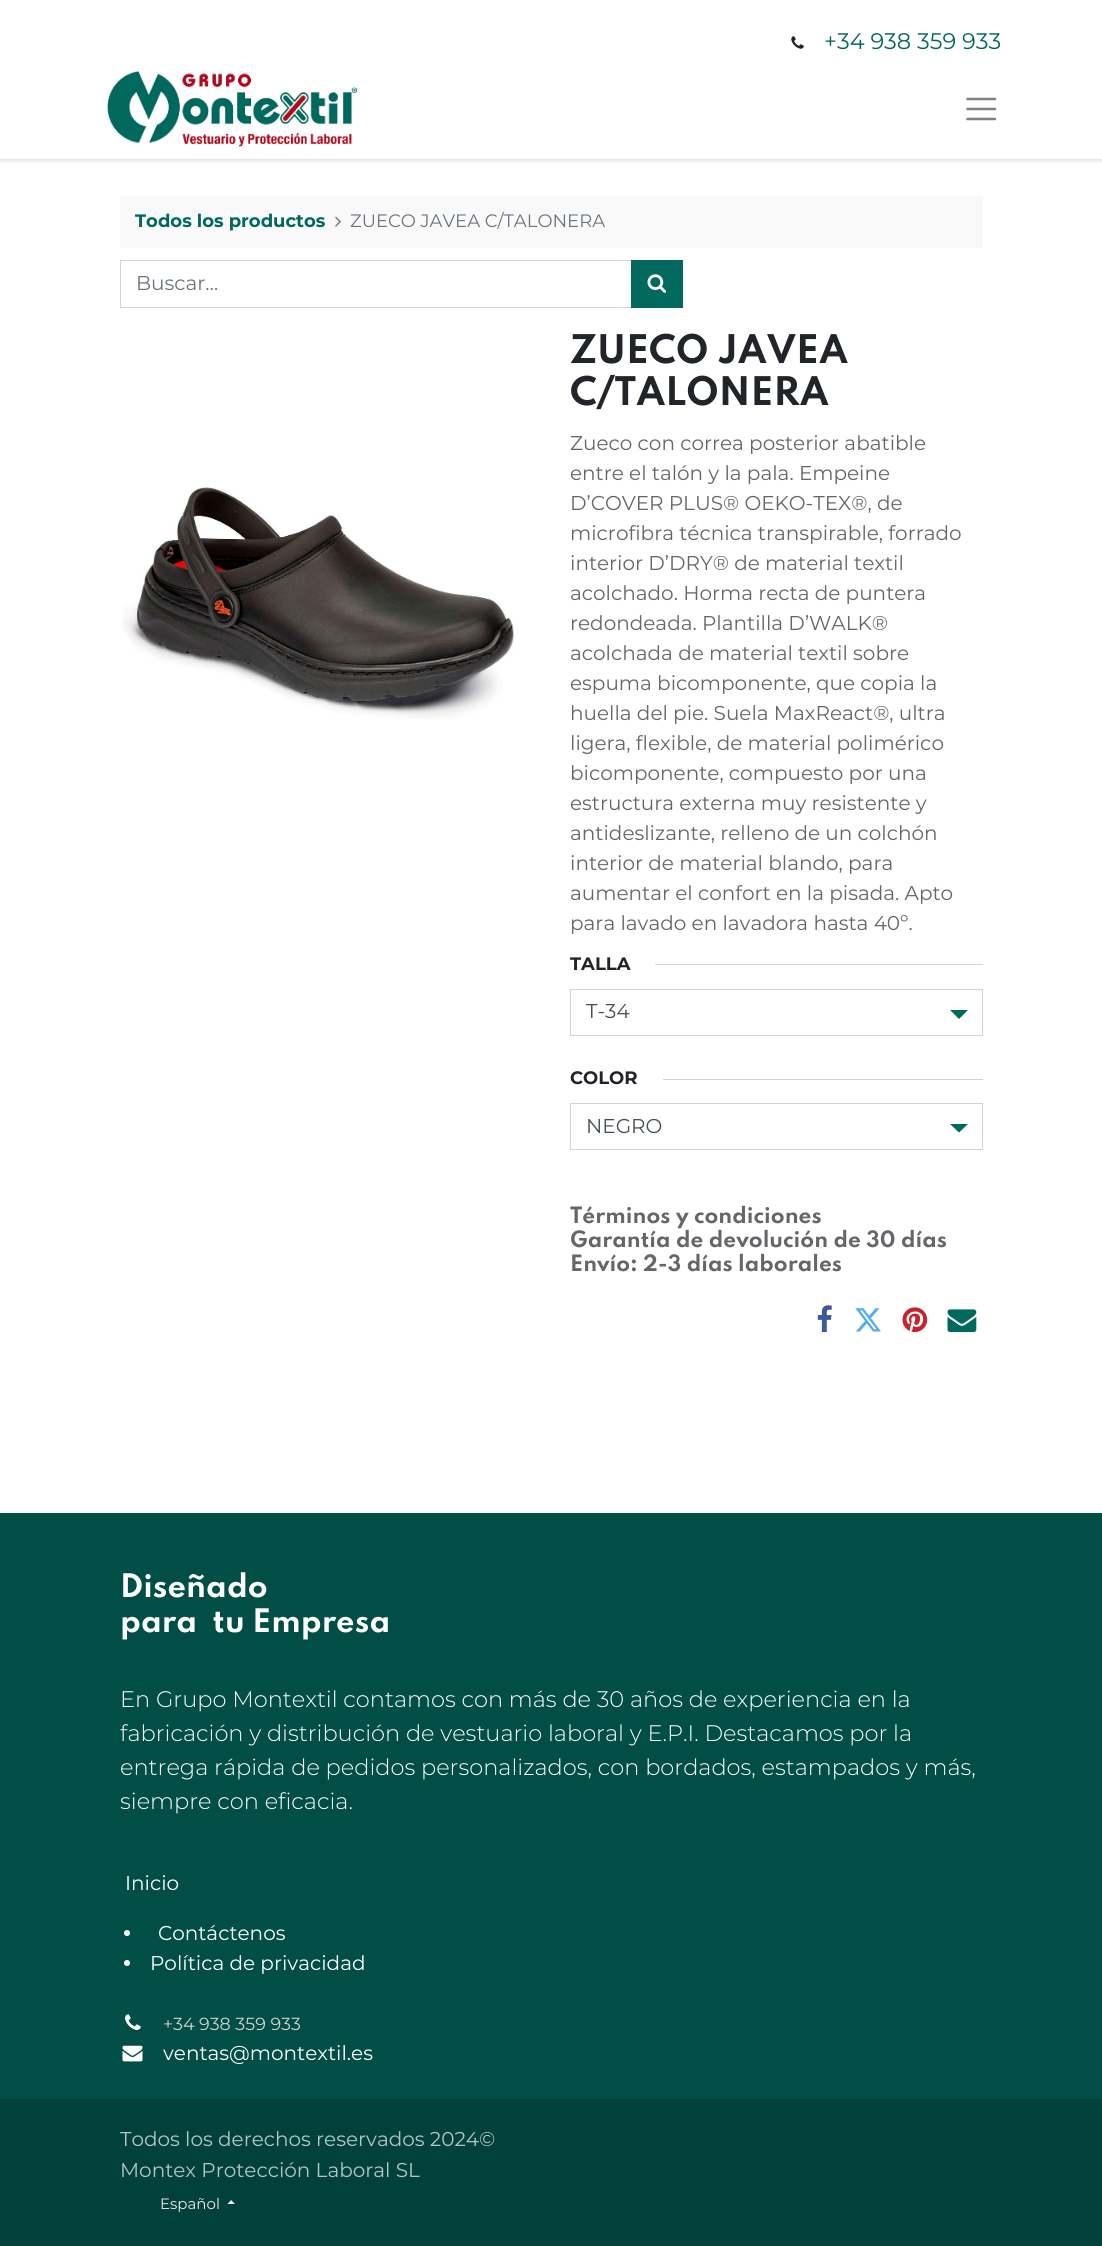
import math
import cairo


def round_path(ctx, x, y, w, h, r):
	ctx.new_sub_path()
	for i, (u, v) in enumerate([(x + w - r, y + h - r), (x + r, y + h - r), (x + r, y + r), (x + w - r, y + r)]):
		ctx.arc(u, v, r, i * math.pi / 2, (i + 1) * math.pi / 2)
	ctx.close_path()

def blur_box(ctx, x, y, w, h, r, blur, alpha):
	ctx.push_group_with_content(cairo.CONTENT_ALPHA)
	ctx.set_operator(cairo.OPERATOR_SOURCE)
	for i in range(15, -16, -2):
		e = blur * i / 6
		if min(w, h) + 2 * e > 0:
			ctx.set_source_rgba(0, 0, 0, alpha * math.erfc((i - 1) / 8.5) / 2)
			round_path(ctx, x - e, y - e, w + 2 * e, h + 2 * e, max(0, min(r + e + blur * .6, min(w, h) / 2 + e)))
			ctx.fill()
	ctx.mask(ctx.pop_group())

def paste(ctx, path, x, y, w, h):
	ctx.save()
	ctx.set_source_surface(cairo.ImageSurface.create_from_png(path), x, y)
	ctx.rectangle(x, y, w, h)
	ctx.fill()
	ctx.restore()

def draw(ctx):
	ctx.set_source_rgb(1, 1, 1)
	ctx.paint()
	ctx.set_source_rgb(0, 0, 0)
	blur_box(ctx, 0, 0, 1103, 159, 0, 3, 0.25)
	ctx.set_source_rgb(1, 1, 1)
	ctx.rectangle(0, 0, 1102, 159)
	ctx.fill()
	paste(ctx, 'media/1.png', 791, 36, 13, 13)
	ctx.select_font_face('Montserrat')
	ctx.set_font_size(22.5)
	ctx.set_source_rgb(0, 0.408, 0.361)
	ctx.move_to(824, 49)
	ctx.show_text('+34 938 359 933')
	paste(ctx, 'media/2.png', 107, 71, 251, 76)
	ctx.new_path()
	ctx.move_to(967.5, 99)
	ctx.line_to(995, 99)
	ctx.move_to(967.5, 109)
	ctx.line_to(995, 109)
	ctx.move_to(967.5, 119)
	ctx.line_to(995, 119)
	ctx.set_source_rgb(0.502, 0.502, 0.502)
	ctx.set_line_width(2.5)
	ctx.set_line_cap(cairo.LINE_CAP_ROUND)
	ctx.stroke()
	ctx.set_source_rgb(0.973, 0.976, 0.98)
	ctx.rectangle(120, 196, 863, 52)
	ctx.fill()
	ctx.select_font_face('Montserrat', cairo.FONT_SLANT_NORMAL, cairo.FONT_WEIGHT_BOLD)
	ctx.set_font_size(18)
	ctx.set_source_rgb(0, 0.408, 0.361)
	ctx.move_to(135, 227)
	ctx.show_text('Todos los productos')
	paste(ctx, 'media/3.png', 335, 216, 6, 11)
	ctx.select_font_face('Montserrat')
	ctx.set_source_rgb(0.424, 0.459, 0.49)
	ctx.move_to(350, 227)
	ctx.show_text('ZUECO JAVEA C/TALONERA')
	ctx.rectangle(120.5, 260.5, 512, 47)
	ctx.set_source_rgb(0.808, 0.831, 0.855)
	ctx.set_line_width(1)
	ctx.set_line_cap(cairo.LINE_CAP_BUTT)
	ctx.stroke()
	ctx.set_font_size(20)
	ctx.set_source_rgb(0.424, 0.459, 0.49)
	ctx.move_to(136, 290)
	ctx.show_text('Buscar…')
	ctx.set_source_rgb(0, 0.408, 0.361)
	ctx.rectangle(631, 260, 52, 48)
	ctx.fill()
	paste(ctx, 'media/4.png', 647, 274, 20, 19)
	paste(ctx, 'media/5.png', 122, 487, 393, 233)
	ctx.select_font_face('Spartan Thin', cairo.FONT_SLANT_NORMAL, cairo.FONT_WEIGHT_BOLD)
	ctx.set_font_size(35)
	ctx.set_source_rgb(0.129, 0.145, 0.161)
	ctx.move_to(570, 363)
	ctx.show_text('ZUECO JAVEA')
	ctx.move_to(570, 405)
	ctx.show_text('C/TALONERA')
	ctx.select_font_face('Montserrat')
	ctx.set_font_size(20)
	ctx.set_source_rgb(0.392, 0.4, 0.412)
	for x, y, s in [
		(570, 450, 'Zueco con correa posterior abatible'),
		(570, 480, 'entre el talón y la pala. Empeine'),
		(570, 510, 'D’COVER PLUS® OEKO-TEX®, de'),
		(570, 540, 'microfibra técnica transpirable, forrado'),
		(570, 570, 'interior D’DRY® de material textil'),
		(570, 600, 'acolchado. Horma recta de puntera'),
		(570, 630, 'redondeada. Plantilla D’WALK®'),
		(570, 660, 'acolchada de material textil sobre'),
		(570, 690, 'espuma bicomponente, que copia la'),
		(570, 720, 'huella del pie. Suela MaxReact®, ultra'),
		(570, 750, 'ligera, flexible, de material polimérico'),
		(570, 780, 'bicomponente, compuesto por una'),
		(570, 810, 'estructura externa muy resistente y'),
		(570, 840, 'antideslizante, relleno de un colchón'),
		(570, 870, 'interior de material blando, para'),
		(570, 900, 'aumentar el confort en la pisada. Apto'),
		(570, 930, 'para lavado en lavadora hasta 40º.'),
	]:
		ctx.move_to(x, y)
		ctx.show_text(s)
	ctx.select_font_face('Montserrat', cairo.FONT_SLANT_NORMAL, cairo.FONT_WEIGHT_BOLD)
	ctx.set_font_size(18)
	ctx.set_source_rgb(0.129, 0.145, 0.161)
	ctx.move_to(570, 970)
	ctx.show_text('TALLA')
	ctx.set_source_rgb(0.808, 0.831, 0.855)
	ctx.rectangle(655, 964, 328, 1)
	ctx.fill()
	ctx.set_source_rgb(0, 0.408, 0.361)
	ctx.new_path()
	ctx.move_to(950, 1010)
	ctx.line_to(968, 1010)
	ctx.line_to(959, 1019)
	ctx.close_path()
	ctx.fill()
	ctx.rectangle(570.5, 989.5, 412, 46)
	ctx.set_source_rgb(0.808, 0.831, 0.855)
	ctx.stroke()
	ctx.select_font_face('Montserrat')
	ctx.set_font_size(20)
	ctx.set_source_rgb(0.286, 0.314, 0.341)
	ctx.move_to(586, 1018)
	ctx.show_text('T-34')
	ctx.select_font_face('Montserrat', cairo.FONT_SLANT_NORMAL, cairo.FONT_WEIGHT_BOLD)
	ctx.set_font_size(18)
	ctx.set_source_rgb(0.129, 0.145, 0.161)
	ctx.move_to(570, 1084)
	ctx.show_text('COLOR')
	ctx.set_source_rgb(0.808, 0.831, 0.855)
	ctx.rectangle(663, 1079, 320, 1)
	ctx.fill()
	ctx.set_source_rgb(0, 0.408, 0.361)
	ctx.new_path()
	ctx.move_to(950, 1124)
	ctx.line_to(968, 1124)
	ctx.line_to(959, 1132.5)
	ctx.close_path()
	ctx.fill()
	ctx.rectangle(570.5, 1103.5, 412, 46)
	ctx.set_source_rgb(0.808, 0.831, 0.855)
	ctx.stroke()
	ctx.select_font_face('Montserrat')
	ctx.set_font_size(20)
	ctx.set_source_rgb(0.286, 0.314, 0.341)
	ctx.move_to(586, 1133)
	ctx.show_text('NEGRO')
	ctx.select_font_face('Spartan Thin', cairo.FONT_SLANT_NORMAL, cairo.FONT_WEIGHT_BOLD)
	ctx.set_source_rgb(0.392, 0.4, 0.412)
	for x, y, s in [
		(570, 1223, 'Términos y condiciones'),
		(570, 1247, 'Garantía de devolución de 30 días'),
		(570, 1271, 'Envío: 2-3 días laborales'),
	]:
		ctx.move_to(x, y)
		ctx.show_text(s)
	paste(ctx, 'media/6.png', 817, 1305, 15, 28)
	paste(ctx, 'media/7.png', 855, 1308, 26, 24)
	paste(ctx, 'media/8.png', 902, 1307, 26, 26)
	paste(ctx, 'media/9.png', 947, 1309, 30, 24)
	ctx.set_source_rgb(0, 0.306, 0.271)
	ctx.rectangle(0, 1513, 1102, 586)
	ctx.fill()
	ctx.set_font_size(28.75)
	ctx.set_source_rgb(1, 1, 1)
	ctx.move_to(120, 1597)
	ctx.show_text('Diseñado')
	ctx.move_to(120, 1632)
	ctx.show_text('para  tu Empresa')
	ctx.select_font_face('Montserrat Light')
	ctx.set_font_size(22.5)
	for x, y, s in [
		(120, 1707, 'En Grupo Montextil contamos con más de 30 años de experiencia en la'),
		(120, 1741, 'fabricación y distribución de vestuario laboral y E.P.I. Destacamos por la'),
		(120, 1775, 'entrega rápida de pedidos personalizados, con bordados, estampados y más,'),
		(120, 1809, 'siempre con eficacia.'),
	]:
		ctx.move_to(x, y)
		ctx.show_text(s)
	ctx.select_font_face('Montserrat')
	ctx.set_font_size(20)
	ctx.move_to(125, 1890)
	ctx.show_text('Inicio')
	ctx.new_path()
	ctx.arc(127, 1933, 3, 0, 2 * math.pi)
	ctx.fill()
	ctx.move_to(158, 1940)
	ctx.show_text('Contáctenos')
	ctx.new_path()
	ctx.arc(127, 1963, 3, 0, 2 * math.pi)
	ctx.fill()
	ctx.move_to(150, 1970)
	ctx.show_text('Política de privacidad')
	paste(ctx, 'media/10.png', 125, 2014, 16, 16)
	ctx.set_font_size(17.5)
	ctx.set_source_rgb(0.82, 0.82, 0.82)
	ctx.move_to(163, 2030)
	ctx.show_text('+34 938 359 933')
	paste(ctx, 'media/11.png', 122, 2045, 21, 17)
	ctx.set_font_size(20)
	ctx.set_source_rgb(1, 1, 1)
	ctx.move_to(163, 2060)
	ctx.show_text('ventas@montextil.es')
	ctx.set_source_rgb(0, 0.259, 0.231)
	ctx.rectangle(0, 2099, 1102, 147)
	ctx.fill()
	ctx.set_source_rgb(0.702, 0.776, 0.769)
	ctx.move_to(120, 2146)
	ctx.show_text('Todos los derechos reservados 2024©')
	ctx.move_to(120, 2177)
	ctx.show_text('Montex Protección Laboral SL')
	ctx.set_font_size(15)
	ctx.set_source_rgb(0.973, 0.906, 0.914)
	ctx.move_to(160, 2209)
	ctx.show_text('Español')
	ctx.new_path()
	ctx.move_to(235, 2204)
	ctx.line_to(227.5, 2204)
	ctx.line_to(231, 2200)
	ctx.close_path()
	ctx.fill()


surface = cairo.ImageSurface(cairo.FORMAT_RGB24, 1102, 2246)
ctx = cairo.Context(surface)
options = cairo.FontOptions()
options.set_hint_metrics(cairo.HINT_METRICS_OFF)
options.set_hint_style(cairo.HINT_STYLE_NONE)
ctx.set_font_options(options)
ctx.set_miter_limit(4)
draw(ctx)
surface.write_to_png('image.png')
